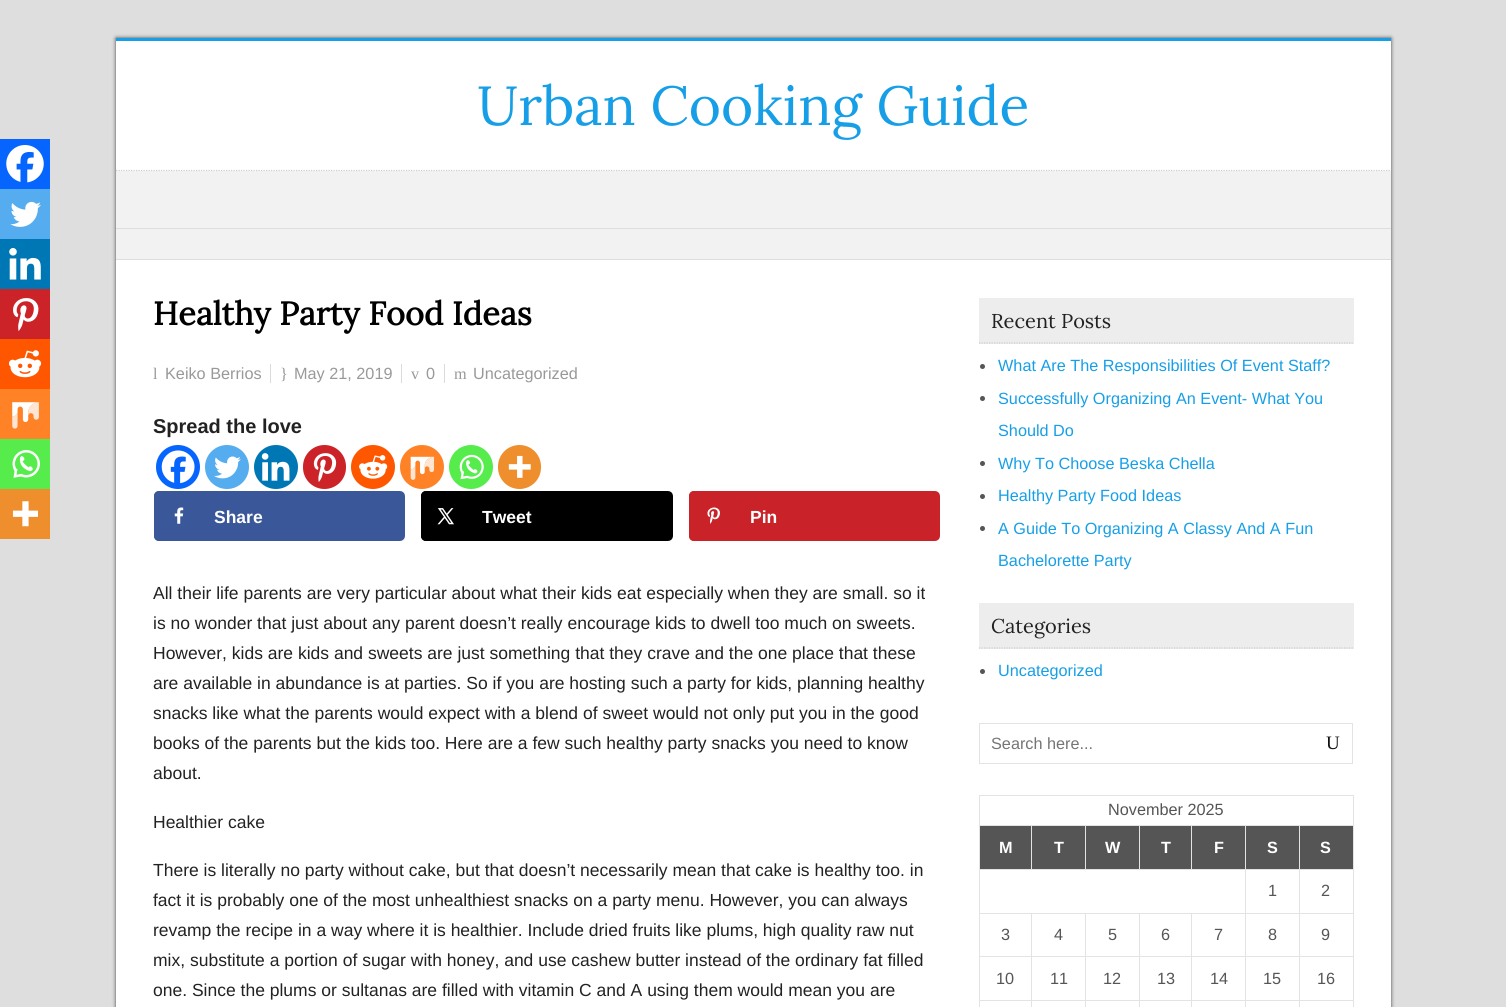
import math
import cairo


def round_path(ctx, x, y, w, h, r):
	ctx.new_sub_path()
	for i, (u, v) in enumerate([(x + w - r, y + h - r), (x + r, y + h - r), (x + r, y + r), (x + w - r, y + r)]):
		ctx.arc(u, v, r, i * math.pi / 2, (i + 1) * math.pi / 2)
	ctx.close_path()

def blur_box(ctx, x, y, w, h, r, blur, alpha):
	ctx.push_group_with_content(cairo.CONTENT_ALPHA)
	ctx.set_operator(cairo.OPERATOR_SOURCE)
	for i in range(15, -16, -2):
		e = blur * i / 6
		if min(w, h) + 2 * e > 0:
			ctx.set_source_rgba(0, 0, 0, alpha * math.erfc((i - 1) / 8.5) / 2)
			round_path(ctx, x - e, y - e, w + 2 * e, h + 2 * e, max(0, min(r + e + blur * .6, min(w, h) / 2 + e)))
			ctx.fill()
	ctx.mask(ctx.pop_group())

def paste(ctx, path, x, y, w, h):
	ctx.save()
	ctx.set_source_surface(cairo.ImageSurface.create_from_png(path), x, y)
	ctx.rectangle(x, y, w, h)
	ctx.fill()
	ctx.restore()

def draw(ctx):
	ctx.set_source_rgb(0.871, 0.871, 0.871)
	ctx.paint()
	ctx.set_source_rgb(0.267, 0.267, 0.267)
	blur_box(ctx, 116, 38, 1275, 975, 0, 2, 1)
	ctx.set_source_rgb(1, 1, 1)
	ctx.rectangle(116, 41, 1275, 966)
	ctx.fill()
	ctx.set_source_rgb(0.086, 0.624, 0.902)
	ctx.rectangle(116, 38, 1275, 3)
	ctx.fill()
	ctx.set_source_rgb(0.949, 0.949, 0.949)
	ctx.rectangle(116, 171, 1275, 57)
	ctx.fill()
	ctx.new_path()
	ctx.move_to(116, 170.5)
	ctx.line_to(1391, 170.5)
	ctx.set_source_rgb(0.8, 0.8, 0.8)
	ctx.set_line_width(1.2)
	ctx.set_dash([1.25, 1.25])
	ctx.stroke()
	ctx.select_font_face('Lora')
	ctx.set_font_size(55)
	ctx.set_source_rgb(0.086, 0.624, 0.902)
	ctx.move_to(477, 125)
	ctx.show_text('Urban Cooking Guide')
	ctx.set_source_rgb(0.867, 0.867, 0.867)
	ctx.rectangle(116, 228, 1275, 1)
	ctx.fill()
	ctx.set_source_rgb(0.949, 0.949, 0.949)
	ctx.rectangle(116, 229, 1275, 30)
	ctx.fill()
	ctx.set_source_rgb(0.867, 0.867, 0.867)
	ctx.rectangle(116, 259, 1275, 1)
	ctx.fill()
	ctx.select_font_face('Lora', cairo.FONT_SLANT_NORMAL, cairo.FONT_WEIGHT_BOLD)
	ctx.set_font_size(32.5)
	ctx.set_source_rgb(0, 0, 0)
	ctx.move_to(153, 325)
	ctx.show_text('Healthy Party Food Ideas')
	ctx.select_font_face('Liberation Serif')
	ctx.set_font_size(16.25)
	ctx.set_source_rgb(0.6, 0.6, 0.6)
	ctx.move_to(153, 379)
	ctx.show_text('l')
	ctx.select_font_face('Liberation Sans')
	ctx.move_to(165, 379)
	ctx.show_text('Keiko Berrios')
	ctx.select_font_face('Liberation Serif')
	ctx.move_to(280, 379)
	ctx.show_text('}')
	ctx.set_source_rgb(0.859, 0.859, 0.859)
	ctx.rectangle(270, 364, 1, 19)
	ctx.fill()
	ctx.select_font_face('Liberation Sans')
	ctx.set_source_rgb(0.6, 0.6, 0.6)
	ctx.move_to(294, 379)
	ctx.show_text('May 21, 2019')
	ctx.select_font_face('Liberation Serif')
	ctx.move_to(411, 379)
	ctx.show_text('v')
	ctx.set_source_rgb(0.859, 0.859, 0.859)
	ctx.rectangle(401, 364, 1, 19)
	ctx.fill()
	ctx.select_font_face('Liberation Sans')
	ctx.set_source_rgb(0.6, 0.6, 0.6)
	ctx.move_to(426, 379)
	ctx.show_text('0')
	ctx.select_font_face('Liberation Serif')
	ctx.move_to(454, 379)
	ctx.show_text('m')
	ctx.set_source_rgb(0.859, 0.859, 0.859)
	ctx.rectangle(444, 364, 1, 19)
	ctx.fill()
	ctx.select_font_face('Liberation Sans')
	ctx.set_source_rgb(0.6, 0.6, 0.6)
	ctx.move_to(473, 379)
	ctx.show_text('Uncategorized')
	ctx.set_source_rgb(0.027, 0.396, 0.996)
	ctx.rectangle(0, 139, 50, 50)
	ctx.fill()
	paste(ctx, 'media/1.png', 6, 145, 38, 38)
	ctx.set_source_rgb(0.333, 0.675, 0.933)
	ctx.rectangle(0, 189, 50, 50)
	ctx.fill()
	paste(ctx, 'media/2.png', 10, 201, 31, 26)
	ctx.set_source_rgb(0, 0.467, 0.71)
	ctx.rectangle(0, 239, 50, 50)
	ctx.fill()
	paste(ctx, 'media/3.png', 9, 248, 32, 32)
	ctx.set_source_rgb(0.8, 0.137, 0.161)
	ctx.rectangle(0, 289, 50, 50)
	ctx.fill()
	paste(ctx, 'media/4.png', 13, 298, 26, 33)
	ctx.set_source_rgb(1, 0.341, 0)
	ctx.rectangle(0, 339, 50, 50)
	ctx.fill()
	paste(ctx, 'media/5.png', 8, 350, 34, 28)
	ctx.set_source_rgb(1, 0.51, 0.149)
	ctx.rectangle(0, 389, 50, 50)
	ctx.fill()
	paste(ctx, 'media/6.png', 12, 402, 27, 27)
	ctx.set_source_rgb(0.333, 0.922, 0.298)
	ctx.rectangle(0, 439, 50, 50)
	ctx.fill()
	paste(ctx, 'media/7.png', 12, 450, 28, 28)
	ctx.set_source_rgb(0.933, 0.557, 0.176)
	ctx.rectangle(0, 489, 50, 50)
	ctx.fill()
	paste(ctx, 'media/8.png', 12, 501, 26, 26)
	ctx.select_font_face('Liberation Sans', cairo.FONT_SLANT_NORMAL, cairo.FONT_WEIGHT_BOLD)
	ctx.set_font_size(20)
	ctx.set_source_rgb(0.133, 0.133, 0.133)
	ctx.move_to(153, 433)
	ctx.show_text('Spread the love')
	ctx.set_source_rgb(0.027, 0.396, 0.996)
	ctx.new_path()
	ctx.arc(178, 467, 22, 0, 2 * math.pi)
	ctx.fill()
	paste(ctx, 'media/9.png', 161, 450, 34, 34)
	ctx.set_source_rgb(0.333, 0.675, 0.933)
	ctx.arc(227, 467, 22, 0, 2 * math.pi)
	ctx.fill()
	paste(ctx, 'media/10.png', 214, 456, 27, 23)
	ctx.set_source_rgb(0, 0.467, 0.71)
	ctx.arc(276, 467, 22, 0, 2 * math.pi)
	ctx.fill()
	paste(ctx, 'media/11.png', 261, 453, 29, 28)
	ctx.set_source_rgb(0.8, 0.137, 0.161)
	round_path(ctx, 303, 445, 43, 44, 21.5)
	ctx.fill()
	paste(ctx, 'media/12.png', 313, 453, 24, 29)
	ctx.set_source_rgb(1, 0.341, 0)
	ctx.arc(373, 467, 22, 0, 2 * math.pi)
	ctx.fill()
	paste(ctx, 'media/13.png', 359, 455, 29, 24)
	ctx.set_source_rgb(1, 0.51, 0.149)
	ctx.arc(422, 467, 22, 0, 2 * math.pi)
	ctx.fill()
	paste(ctx, 'media/14.png', 410, 456, 25, 24)
	ctx.set_source_rgb(0.333, 0.922, 0.298)
	ctx.arc(471, 467, 22, 0, 2 * math.pi)
	ctx.fill()
	paste(ctx, 'media/15.png', 459, 454, 25, 26)
	ctx.set_source_rgb(0.933, 0.557, 0.176)
	round_path(ctx, 498, 445, 43, 44, 21.5)
	ctx.fill()
	paste(ctx, 'media/16.png', 508, 455, 23, 23)
	ctx.set_source_rgb(0.227, 0.341, 0.604)
	round_path(ctx, 155.5, 492.5, 248, 47, 3.5)
	ctx.fill_preserve()
	ctx.set_line_width(3)
	ctx.set_dash([])
	ctx.stroke()
	ctx.new_path()
	ctx.move_to(159, 492.5)
	ctx.line_to(202.5, 492.5)
	ctx.line_to(202.5, 539.5)
	ctx.line_to(159, 539.5)
	ctx.curve_to(157, 539.5, 155.5, 538, 155.5, 536)
	ctx.line_to(155.5, 496)
	ctx.curve_to(155.5, 494, 157, 492.5, 159, 492.5)
	ctx.close_path()
	ctx.fill_preserve()
	ctx.stroke()
	paste(ctx, 'media/17.png', 174, 507, 10, 17)
	ctx.set_font_size(17.5)
	ctx.set_source_rgb(1, 1, 1)
	ctx.move_to(214, 523)
	ctx.show_text('Share')
	ctx.set_source_rgb(0, 0, 0)
	round_path(ctx, 422.5, 492.5, 249, 47, 3.5)
	ctx.fill_preserve()
	ctx.stroke()
	ctx.new_path()
	ctx.move_to(426, 492.5)
	ctx.line_to(469.5, 492.5)
	ctx.line_to(469.5, 539.5)
	ctx.line_to(426, 539.5)
	ctx.curve_to(424, 539.5, 422.5, 538, 422.5, 536)
	ctx.line_to(422.5, 496)
	ctx.curve_to(422.5, 494, 424, 492.5, 426, 492.5)
	ctx.close_path()
	ctx.fill_preserve()
	ctx.stroke()
	paste(ctx, 'media/18.png', 437, 508, 17, 17)
	ctx.set_source_rgb(1, 1, 1)
	ctx.move_to(482, 523)
	ctx.show_text('Tweet')
	ctx.set_source_rgb(0.788, 0.133, 0.157)
	round_path(ctx, 690.5, 492.5, 248, 47, 3.5)
	ctx.fill_preserve()
	ctx.stroke()
	ctx.new_path()
	ctx.move_to(694, 492.5)
	ctx.line_to(737.5, 492.5)
	ctx.line_to(737.5, 539.5)
	ctx.line_to(694, 539.5)
	ctx.curve_to(692, 539.5, 690.5, 538, 690.5, 536)
	ctx.line_to(690.5, 496)
	ctx.curve_to(690.5, 494, 692, 492.5, 694, 492.5)
	ctx.close_path()
	ctx.fill_preserve()
	ctx.stroke()
	paste(ctx, 'media/19.png', 707, 507, 13, 17)
	ctx.set_source_rgb(1, 1, 1)
	ctx.move_to(750, 523)
	ctx.show_text('Pin')
	ctx.select_font_face('Liberation Sans')
	ctx.set_source_rgb(0.133, 0.133, 0.133)
	for x, y, s in [
		(153, 599, 'All their life parents are very particular about what their kids eat especially when they are small. so it'),
		(153, 629, 'is no wonder that just about any parent doesn’t really encourage kids to dwell too much on sweets.'),
		(153, 659, 'However, kids are kids and sweets are just something that they crave and the one place that these'),
		(153, 689, 'are available in abundance is at parties. So if you are hosting such a party for kids, planning healthy'),
		(153, 719, 'snacks like what the parents would expect with a blend of sweet would not only put you in the good'),
		(153, 749, 'books of the parents but the kids too. Here are a few such healthy party snacks you need to know'),
		(153, 779, 'about.'),
		(153, 828, 'Healthier cake'),
		(153, 876, 'There is literally no party without cake, but that doesn’t necessarily mean that cake is healthy too. in'),
		(153, 906, 'fact it is probably one of the most unhealthiest snacks on a party menu. However, you can always'),
		(153, 936, 'revamp the recipe in a way where it is healthier. Include dried fruits like plums, high quality raw nut'),
		(153, 966, 'mix, substitute a portion of sugar with honey, and use cashew butter instead of the ordinary fat filled'),
		(153, 996, 'one. Since the plums or sultanas are filled with vitamin C and A using them would mean you are'),
	]:
		ctx.move_to(x, y)
		ctx.show_text(s)
	ctx.set_source_rgb(0.929, 0.929, 0.929)
	ctx.rectangle(979, 298, 375, 46)
	ctx.fill()
	ctx.new_path()
	ctx.move_to(979, 343)
	ctx.line_to(1354, 343)
	ctx.set_source_rgb(0.8, 0.8, 0.8)
	ctx.set_line_width(1.2)
	ctx.set_dash([1.25, 1.25])
	ctx.stroke()
	ctx.select_font_face('Lora')
	ctx.set_font_size(20)
	ctx.set_source_rgb(0.133, 0.133, 0.133)
	ctx.move_to(991, 328)
	ctx.show_text('Recent Posts')
	ctx.set_source_rgb(0.333, 0.333, 0.333)
	ctx.new_path()
	ctx.arc(982.5, 366.5, 2.5, 0, 2 * math.pi)
	ctx.fill()
	ctx.select_font_face('Liberation Sans')
	ctx.set_font_size(16.25)
	ctx.set_source_rgb(0.086, 0.624, 0.902)
	ctx.move_to(998, 371)
	ctx.show_text('What Are The Responsibilities Of Event Staff?')
	ctx.set_source_rgb(0.333, 0.333, 0.333)
	ctx.new_path()
	ctx.arc(982.5, 398.5, 2.5, 0, 2 * math.pi)
	ctx.fill()
	ctx.set_source_rgb(0.086, 0.624, 0.902)
	ctx.move_to(998, 404)
	ctx.show_text('Successfully Organizing An Event- What You')
	ctx.move_to(998, 436)
	ctx.show_text('Should Do')
	ctx.set_source_rgb(0.333, 0.333, 0.333)
	ctx.new_path()
	ctx.arc(982.5, 463.5, 2.5, 0, 2 * math.pi)
	ctx.fill()
	ctx.set_source_rgb(0.086, 0.624, 0.902)
	ctx.move_to(998, 469)
	ctx.show_text('Why To Choose Beska Chella')
	ctx.set_source_rgb(0.333, 0.333, 0.333)
	ctx.new_path()
	ctx.arc(982.5, 496.5, 2.5, 0, 2 * math.pi)
	ctx.fill()
	ctx.set_source_rgb(0.086, 0.624, 0.902)
	ctx.move_to(998, 501)
	ctx.show_text('Healthy Party Food Ideas')
	ctx.set_source_rgb(0.333, 0.333, 0.333)
	ctx.new_path()
	ctx.arc(982.5, 528.5, 2.5, 0, 2 * math.pi)
	ctx.fill()
	ctx.set_source_rgb(0.086, 0.624, 0.902)
	ctx.move_to(998, 534)
	ctx.show_text('A Guide To Organizing A Classy And A Fun')
	ctx.move_to(998, 566)
	ctx.show_text('Bachelorette Party')
	ctx.set_source_rgb(0.929, 0.929, 0.929)
	ctx.rectangle(979, 603, 375, 46)
	ctx.fill()
	ctx.new_path()
	ctx.move_to(979, 648)
	ctx.line_to(1354, 648)
	ctx.set_source_rgb(0.8, 0.8, 0.8)
	ctx.stroke()
	ctx.select_font_face('Lora')
	ctx.set_font_size(20)
	ctx.set_source_rgb(0.133, 0.133, 0.133)
	ctx.move_to(991, 633)
	ctx.show_text('Categories')
	ctx.set_source_rgb(0.333, 0.333, 0.333)
	ctx.new_path()
	ctx.arc(982.5, 671.5, 2.5, 0, 2 * math.pi)
	ctx.fill()
	ctx.select_font_face('Liberation Sans')
	ctx.set_font_size(16.25)
	ctx.set_source_rgb(0.086, 0.624, 0.902)
	ctx.move_to(998, 676)
	ctx.show_text('Uncategorized')
	ctx.rectangle(979.5, 723.5, 373, 40)
	ctx.set_source_rgb(0.89, 0.89, 0.89)
	ctx.set_line_width(1)
	ctx.set_dash([])
	ctx.stroke()
	ctx.set_source_rgb(0.459, 0.459, 0.459)
	ctx.move_to(991, 749)
	ctx.show_text('Search here...')
	ctx.select_font_face('Liberation Serif')
	ctx.set_font_size(19)
	ctx.set_source_rgb(0.067, 0.067, 0.067)
	ctx.move_to(1326, 749)
	ctx.show_text('U')
	ctx.set_source_rgb(0.89, 0.89, 0.89)
	ctx.rectangle(979, 795, 375, 1)
	ctx.rectangle(1353, 795, 1, 212)
	ctx.rectangle(979, 795, 1, 212)
	ctx.fill()
	ctx.select_font_face('Liberation Sans')
	ctx.set_font_size(16.25)
	ctx.set_source_rgb(0.333, 0.333, 0.333)
	ctx.move_to(1108, 815)
	ctx.show_text('November 2025')
	ctx.rectangle(980, 826, 105, 43)
	ctx.fill()
	ctx.set_source_rgb(0.89, 0.89, 0.89)
	ctx.rectangle(1299, 825, 55, 1)
	ctx.rectangle(1299, 869, 55, 1)
	ctx.rectangle(1299, 913, 55, 1)
	ctx.rectangle(1299, 956, 55, 1)
	ctx.rectangle(1299, 1000, 55, 1)
	ctx.rectangle(1299, 1000, 1, 7)
	ctx.rectangle(1245, 1000, 55, 1)
	ctx.rectangle(1299, 956, 1, 45)
	ctx.rectangle(1245, 956, 55, 1)
	ctx.rectangle(1299, 913, 1, 45)
	ctx.rectangle(1245, 913, 55, 1)
	ctx.rectangle(1299, 869, 1, 45)
	ctx.rectangle(1245, 869, 55, 1)
	ctx.rectangle(1299, 825, 1, 45)
	ctx.rectangle(1245, 825, 55, 1)
	ctx.rectangle(1245, 1000, 1, 7)
	ctx.rectangle(1191, 1000, 55, 1)
	ctx.rectangle(1245, 956, 1, 45)
	ctx.rectangle(1191, 956, 55, 1)
	ctx.rectangle(1245, 913, 1, 45)
	ctx.rectangle(1191, 913, 55, 1)
	ctx.rectangle(1245, 869, 1, 45)
	ctx.rectangle(979, 869, 267, 1)
	ctx.rectangle(1245, 825, 1, 45)
	ctx.rectangle(1191, 825, 55, 1)
	ctx.fill()
	ctx.set_source_rgb(0.333, 0.333, 0.333)
	ctx.rectangle(1140, 826, 105, 43)
	ctx.fill()
	ctx.set_source_rgb(0.89, 0.89, 0.89)
	ctx.rectangle(1191, 825, 1, 45)
	ctx.rectangle(1139, 825, 54, 1)
	ctx.rectangle(1139, 825, 1, 45)
	ctx.rectangle(1085, 825, 55, 1)
	ctx.rectangle(1085, 825, 1, 45)
	ctx.rectangle(1031, 825, 55, 1)
	ctx.rectangle(1031, 825, 1, 45)
	ctx.rectangle(979, 825, 54, 1)
	ctx.fill()
	ctx.select_font_face('Liberation Sans', cairo.FONT_SLANT_NORMAL, cairo.FONT_WEIGHT_BOLD)
	ctx.set_source_rgb(1, 1, 1)
	ctx.move_to(999, 853)
	ctx.show_text('M')
	ctx.move_to(1054, 853)
	ctx.show_text('T')
	ctx.set_source_rgb(0.333, 0.333, 0.333)
	ctx.rectangle(1086, 826, 53, 43)
	ctx.fill()
	ctx.set_source_rgb(1, 1, 1)
	for x, y, s in [
		(1105, 853, 'W'),
		(1161, 853, 'T'),
		(1214, 853, 'F'),
	]:
		ctx.move_to(x, y)
		ctx.show_text(s)
	ctx.set_source_rgb(0.333, 0.333, 0.333)
	ctx.rectangle(1246, 826, 53, 43)
	ctx.fill()
	ctx.set_source_rgb(1, 1, 1)
	ctx.move_to(1267, 853)
	ctx.show_text('S')
	ctx.set_source_rgb(0.333, 0.333, 0.333)
	ctx.rectangle(1300, 826, 53, 43)
	ctx.fill()
	ctx.set_source_rgb(1, 1, 1)
	ctx.move_to(1320, 853)
	ctx.show_text('S')
	ctx.select_font_face('Liberation Sans')
	ctx.set_source_rgb(0.333, 0.333, 0.333)
	ctx.move_to(1268, 896)
	ctx.show_text('1')
	ctx.move_to(1321, 896)
	ctx.show_text('2')
	ctx.set_source_rgb(0.89, 0.89, 0.89)
	ctx.rectangle(1191, 1000, 1, 7)
	ctx.rectangle(1139, 1000, 54, 1)
	ctx.rectangle(1191, 956, 1, 45)
	ctx.rectangle(1139, 956, 54, 1)
	ctx.rectangle(1191, 913, 1, 45)
	ctx.rectangle(1139, 913, 54, 1)
	ctx.rectangle(1139, 1000, 1, 7)
	ctx.rectangle(1085, 1000, 55, 1)
	ctx.rectangle(1139, 956, 1, 45)
	ctx.rectangle(1085, 956, 55, 1)
	ctx.rectangle(1139, 913, 1, 45)
	ctx.rectangle(1085, 913, 55, 1)
	ctx.rectangle(1085, 1000, 1, 7)
	ctx.rectangle(1031, 1000, 55, 1)
	ctx.rectangle(1085, 956, 1, 45)
	ctx.rectangle(1031, 956, 55, 1)
	ctx.rectangle(1085, 913, 1, 45)
	ctx.rectangle(1031, 913, 55, 1)
	ctx.rectangle(1031, 1000, 1, 7)
	ctx.rectangle(979, 1000, 54, 1)
	ctx.rectangle(1031, 956, 1, 45)
	ctx.rectangle(979, 956, 54, 1)
	ctx.rectangle(1031, 913, 1, 45)
	ctx.rectangle(979, 913, 54, 1)
	ctx.fill()
	ctx.set_source_rgb(0.333, 0.333, 0.333)
	for x, y, s in [
		(1001, 940, '3'),
		(1054, 940, '4'),
		(1108, 940, '5'),
		(1161, 940, '6'),
		(1214, 940, '7'),
		(1268, 940, '8'),
		(1321, 940, '9'),
		(996, 984, '10'),
		(1050, 984, '11'),
		(1103, 984, '12'),
		(1157, 984, '13'),
		(1210, 984, '14'),
		(1263, 984, '15'),
		(1317, 984, '16'),
	]:
		ctx.move_to(x, y)
		ctx.show_text(s)


surface = cairo.ImageSurface(cairo.FORMAT_RGB24, 1506, 1007)
ctx = cairo.Context(surface)
options = cairo.FontOptions()
options.set_hint_metrics(cairo.HINT_METRICS_OFF)
options.set_hint_style(cairo.HINT_STYLE_NONE)
ctx.set_font_options(options)
ctx.set_miter_limit(4)
draw(ctx)
surface.write_to_png('image.png')
